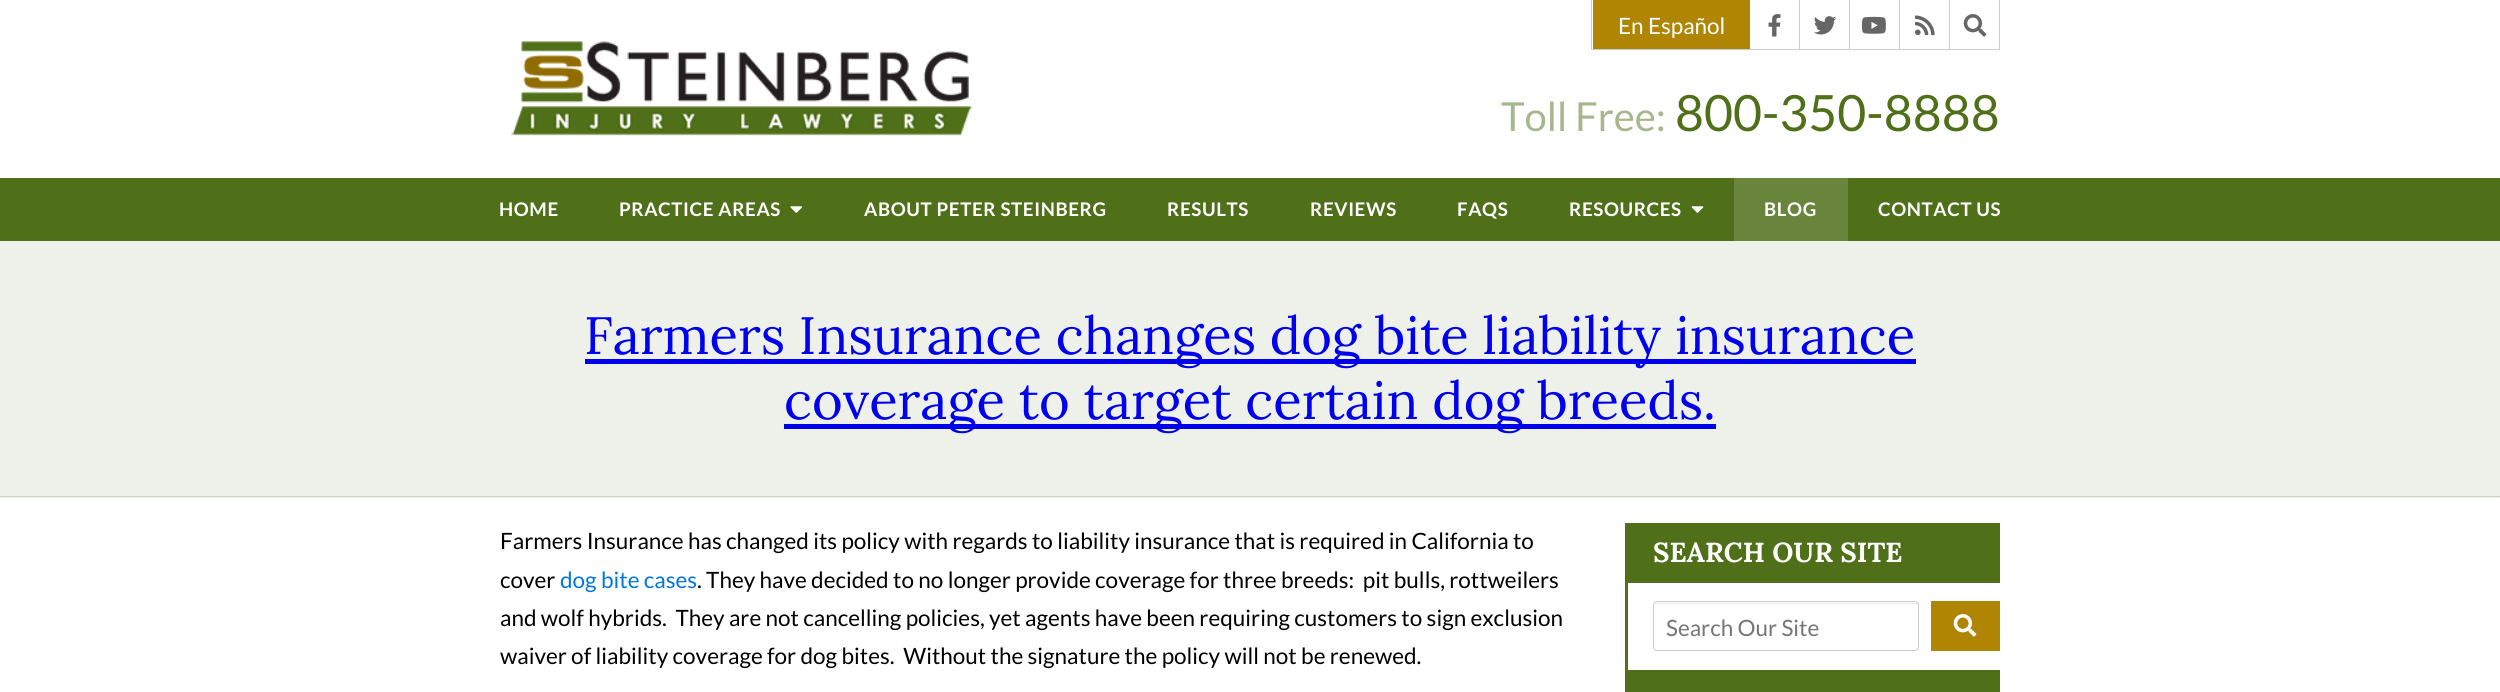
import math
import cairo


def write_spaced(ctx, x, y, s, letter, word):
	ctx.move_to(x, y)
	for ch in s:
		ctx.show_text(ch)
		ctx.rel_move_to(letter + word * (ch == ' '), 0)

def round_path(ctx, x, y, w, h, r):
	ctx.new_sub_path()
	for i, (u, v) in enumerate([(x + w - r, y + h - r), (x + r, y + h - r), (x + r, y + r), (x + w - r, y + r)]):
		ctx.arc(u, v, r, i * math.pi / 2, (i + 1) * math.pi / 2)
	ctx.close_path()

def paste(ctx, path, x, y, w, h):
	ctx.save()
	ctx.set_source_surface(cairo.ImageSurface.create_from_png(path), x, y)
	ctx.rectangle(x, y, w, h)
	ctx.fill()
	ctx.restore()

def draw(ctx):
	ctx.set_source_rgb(1, 1, 1)
	ctx.paint()
	ctx.set_source_rgb(0.8, 0.8, 0.8)
	ctx.rectangle(1591, 49, 409, 1)
	ctx.rectangle(1591, 0, 1, 50)
	ctx.fill()
	ctx.set_source_rgb(0.69, 0.522, 0.012)
	ctx.rectangle(1593, 0, 157, 49)
	ctx.fill()
	ctx.select_font_face('Lato')
	ctx.set_font_size(22.5)
	ctx.set_source_rgb(1, 1, 1)
	ctx.move_to(1618, 34)
	ctx.show_text('En Español')
	ctx.set_source_rgb(0.8, 0.8, 0.8)
	ctx.rectangle(1799, 0, 1, 50)
	ctx.fill()
	paste(ctx, 'media/1.png', 1768, 14, 13, 23)
	ctx.rectangle(1849, 0, 1, 50)
	ctx.fill()
	paste(ctx, 'media/2.png', 1814, 16, 23, 19)
	ctx.rectangle(1899, 0, 1, 50)
	ctx.fill()
	paste(ctx, 'media/3.png', 1861, 16, 25, 18)
	ctx.rectangle(1949, 0, 1, 50)
	ctx.fill()
	paste(ctx, 'media/4.png', 1915, 15, 20, 21)
	ctx.rectangle(1999, 0, 1, 50)
	ctx.fill()
	paste(ctx, 'media/5.png', 1963, 14, 24, 23)
	paste(ctx, 'media/6.png', 511, 41, 461, 95)
	ctx.set_font_size(40)
	ctx.set_source_rgb(0.655, 0.718, 0.549)
	ctx.move_to(1501, 131)
	ctx.show_text('Toll Free:')
	ctx.set_font_size(50)
	ctx.set_source_rgb(0.31, 0.435, 0.098)
	ctx.move_to(1675, 131)
	ctx.show_text('800-350-8888')
	ctx.rectangle(0, 178, 2500, 63)
	ctx.fill()
	ctx.select_font_face('Lato', cairo.FONT_SLANT_NORMAL, cairo.FONT_WEIGHT_BOLD)
	ctx.set_font_size(18.75)
	ctx.set_source_rgb(1, 1, 1)
	write_spaced(ctx, 499, 216, 'HOME', 0.6, 0)
	write_spaced(ctx, 619, 216, 'PRACTICE AREAS', 0.6, 0)
	paste(ctx, 'media/7.png', 790, 206, 12, 7)
	for x, y, s in [
		(864, 216, 'ABOUT PETER STEINBERG'),
		(1167, 216, 'RESULTS'),
		(1310, 216, 'REVIEWS'),
		(1457, 216, 'FAQS'),
		(1569, 216, 'RESOURCES'),
	]:
		write_spaced(ctx, x, y, s, 0.6, 0)
	paste(ctx, 'media/8.png', 1691, 206, 13, 7)
	ctx.set_source_rgb(0.412, 0.522, 0.235)
	ctx.rectangle(1734, 178, 114, 63)
	ctx.fill()
	ctx.set_source_rgb(1, 1, 1)
	write_spaced(ctx, 1764, 216, 'BLOG', 0.6, 0)
	write_spaced(ctx, 1878, 216, 'CONTACT US', 0.6, 0)
	ctx.set_source_rgb(0.933, 0.945, 0.914)
	ctx.rectangle(0, 241, 2500, 257)
	ctx.fill()
	ctx.set_source_rgb(0.808, 0.843, 0.749)
	ctx.rectangle(0, 496, 2500, 1)
	ctx.fill()
	ctx.set_source_rgb(0, 0, 0.933)
	ctx.rectangle(585, 359, 1331, 5)
	ctx.fill()
	ctx.select_font_face('Lora')
	ctx.set_font_size(52.5)
	ctx.move_to(584, 354)
	ctx.show_text('Farmers Insurance changes dog bite liability insurance')
	ctx.rectangle(784, 424, 932, 5)
	ctx.fill()
	ctx.move_to(784, 419)
	ctx.show_text('coverage to target certain dog breeds.')
	ctx.select_font_face('Lato')
	ctx.set_font_size(22.5)
	ctx.set_source_rgb(0, 0, 0)
	ctx.move_to(500, 549)
	ctx.show_text('Farmers Insurance has changed its policy with regards to liability insurance that is required in California to')
	ctx.move_to(500, 588)
	ctx.show_text('cover')
	ctx.set_source_rgb(0, 0.467, 0.867)
	ctx.move_to(560, 588)
	ctx.show_text('dog bite cases')
	ctx.set_source_rgb(0, 0, 0)
	for x, y, s in [
		(697, 588, '. They have decided to no longer provide coverage for three breeds:  pit bulls, rottweilers'),
		(500, 626, 'and wolf hybrids.  They are not cancelling policies, yet agents have been requiring customers to sign exclusion'),
		(500, 664, 'waiver of liability coverage for dog bites.  Without the signature the policy will not be renewed.'),
	]:
		ctx.move_to(x, y)
		ctx.show_text(s)
	ctx.set_source_rgb(0.31, 0.435, 0.098)
	ctx.rectangle(1625, 523, 375, 60)
	ctx.fill()
	ctx.select_font_face('Lora', cairo.FONT_SLANT_NORMAL, cairo.FONT_WEIGHT_BOLD)
	ctx.set_font_size(27.5)
	ctx.set_source_rgb(1, 1, 1)
	ctx.move_to(1653, 562)
	ctx.show_text('SEARCH OUR SITE')
	ctx.set_source_rgb(0.31, 0.435, 0.098)
	ctx.rectangle(1625, 583, 3, 87)
	ctx.fill()
	ctx.set_source_rgb(0.925, 0.925, 0.925)
	ctx.new_path()
	ctx.move_to(1656, 604)
	ctx.line_to(1915, 604)
	ctx.curve_to(1916, 604, 1918, 605, 1918, 606)
	ctx.curve_to(1918, 604, 1917, 603, 1916, 603)
	ctx.line_to(1656, 603)
	ctx.line_to(1654, 604)
	ctx.line_to(1654, 606)
	ctx.curve_to(1654, 605, 1655, 604, 1656, 604)
	ctx.close_path()
	ctx.fill()
	round_path(ctx, 1653.5, 601.5, 265, 49, 3.5)
	ctx.set_source_rgb(0.8, 0.8, 0.8)
	ctx.set_line_width(1)
	ctx.stroke()
	ctx.select_font_face('Lato')
	ctx.set_font_size(22.5)
	ctx.set_source_rgb(0.459, 0.459, 0.459)
	ctx.move_to(1666, 636)
	ctx.show_text('Search Our Site')
	ctx.set_source_rgb(0.69, 0.522, 0.012)
	ctx.rectangle(1931, 601, 69, 50)
	ctx.fill()
	paste(ctx, 'media/9.png', 1953, 614, 24, 23)
	ctx.set_source_rgb(0.31, 0.435, 0.098)
	ctx.rectangle(1625, 670, 375, 22)
	ctx.fill()


surface = cairo.ImageSurface(cairo.FORMAT_RGB24, 2500, 692)
ctx = cairo.Context(surface)
options = cairo.FontOptions()
options.set_hint_metrics(cairo.HINT_METRICS_OFF)
options.set_hint_style(cairo.HINT_STYLE_NONE)
ctx.set_font_options(options)
ctx.set_miter_limit(4)
draw(ctx)
surface.write_to_png('image.png')
